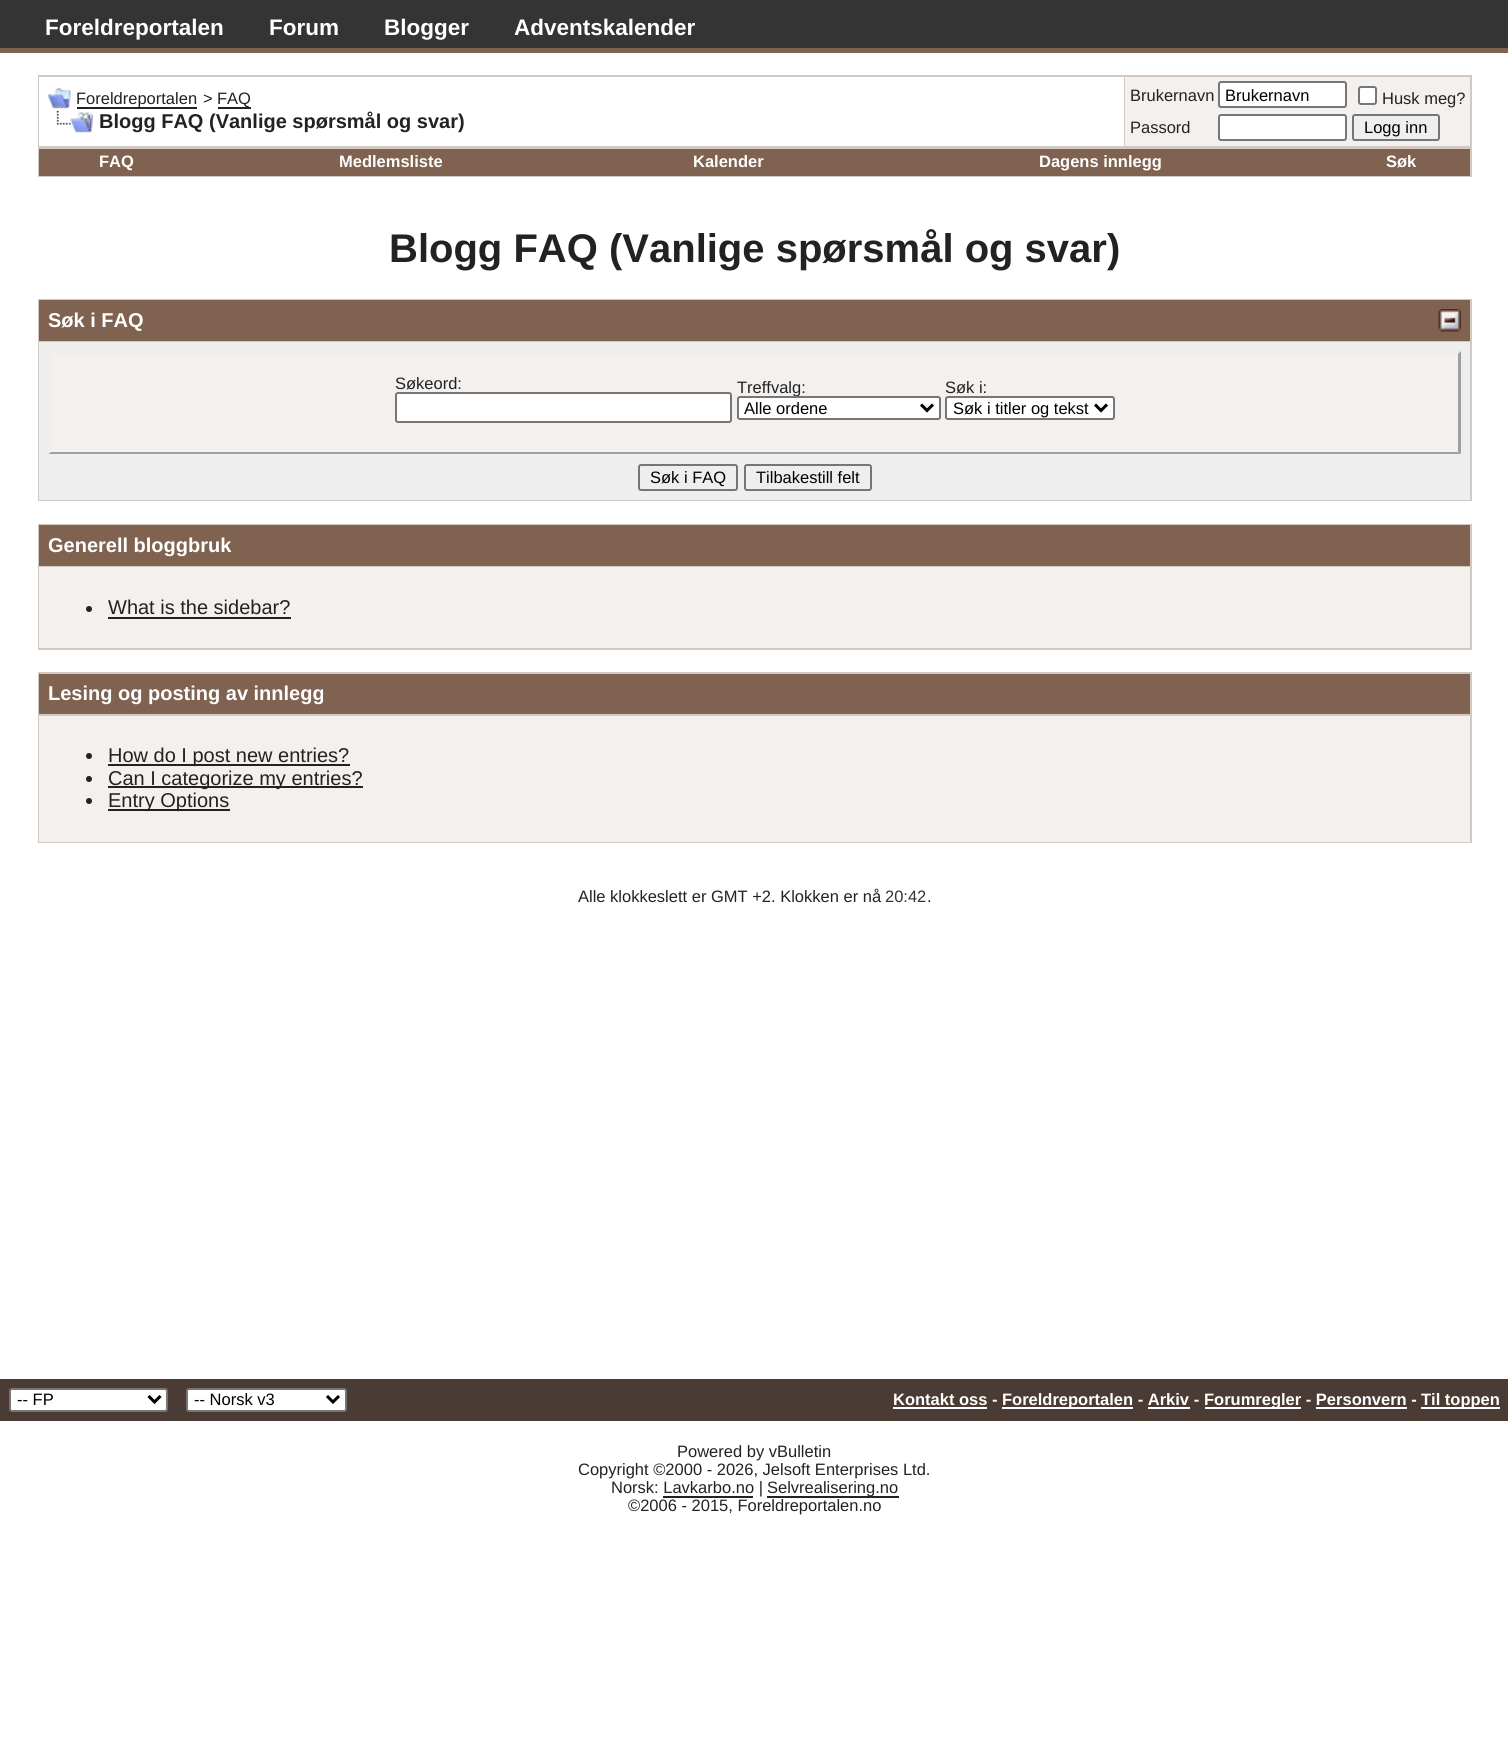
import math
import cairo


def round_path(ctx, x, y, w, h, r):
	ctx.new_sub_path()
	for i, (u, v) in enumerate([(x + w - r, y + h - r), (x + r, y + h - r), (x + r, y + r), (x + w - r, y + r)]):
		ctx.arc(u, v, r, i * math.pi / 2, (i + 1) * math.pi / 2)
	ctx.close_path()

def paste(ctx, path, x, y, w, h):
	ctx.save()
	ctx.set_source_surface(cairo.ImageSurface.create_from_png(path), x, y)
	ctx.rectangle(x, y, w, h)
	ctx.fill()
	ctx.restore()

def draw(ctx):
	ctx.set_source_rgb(1, 1, 1)
	ctx.paint()
	ctx.set_source_rgb(0.204, 0.204, 0.204)
	ctx.rectangle(0, 0, 1508, 48)
	ctx.fill()
	ctx.set_source_rgb(0.498, 0.384, 0.31)
	ctx.rectangle(0, 48, 1508, 5)
	ctx.fill()
	ctx.select_font_face('Liberation Sans', cairo.FONT_SLANT_NORMAL, cairo.FONT_WEIGHT_BOLD)
	ctx.set_font_size(22.5)
	ctx.set_source_rgb(1, 1, 1)
	for x, y, s in [
		(45, 35, 'Foreldreportalen'),
		(269, 35, 'Forum'),
		(384, 35, 'Blogger'),
		(514, 35, 'Adventskalender'),
	]:
		ctx.move_to(x, y)
		ctx.show_text(s)
	ctx.set_source_rgb(0.827, 0.788, 0.765)
	ctx.rectangle(38, 75, 1434, 102)
	ctx.fill()
	ctx.set_source_rgb(1, 1, 1)
	ctx.rectangle(39, 77, 1085, 69)
	ctx.fill()
	paste(ctx, 'media/1.png', 48, 88, 23, 21)
	ctx.set_source_rgb(0.133, 0.133, 0.133)
	ctx.rectangle(77, 107, 120, 2)
	ctx.fill()
	ctx.select_font_face('Liberation Sans')
	ctx.set_font_size(16.5)
	ctx.move_to(76, 104)
	ctx.show_text('Foreldreportalen')
	ctx.move_to(203, 104)
	ctx.show_text('>')
	ctx.rectangle(218, 107, 33, 2)
	ctx.fill()
	ctx.move_to(217, 104)
	ctx.show_text('FAQ')
	paste(ctx, 'media/2.png', 56, 111, 37, 22)
	ctx.select_font_face('Liberation Sans', cairo.FONT_SLANT_NORMAL, cairo.FONT_WEIGHT_BOLD)
	ctx.set_font_size(20)
	ctx.move_to(99, 128)
	ctx.show_text('Blogg FAQ (Vanlige spørsmål og svar)')
	ctx.set_source_rgb(0.953, 0.941, 0.933)
	ctx.rectangle(1125, 77, 345, 69)
	ctx.fill()
	ctx.select_font_face('Liberation Sans')
	ctx.set_font_size(16.5)
	ctx.set_source_rgb(0.133, 0.133, 0.133)
	ctx.move_to(1130, 101)
	ctx.show_text('Brukernavn')
	ctx.set_source_rgb(1, 1, 1)
	round_path(ctx, 1219, 82, 127, 25, 2)
	ctx.fill_preserve()
	ctx.set_source_rgb(0.463, 0.463, 0.463)
	ctx.stroke()
	ctx.set_source_rgb(0, 0, 0)
	ctx.move_to(1225, 101)
	ctx.show_text('Brukernavn')
	ctx.set_source_rgb(1, 1, 1)
	round_path(ctx, 1359, 87, 17, 17, 2)
	ctx.fill_preserve()
	ctx.set_source_rgb(0.463, 0.463, 0.463)
	ctx.stroke()
	ctx.set_source_rgb(0.133, 0.133, 0.133)
	ctx.move_to(1382, 104)
	ctx.show_text('Husk meg?')
	ctx.move_to(1130, 133)
	ctx.show_text('Passord')
	ctx.set_source_rgb(1, 1, 1)
	round_path(ctx, 1219, 115, 127, 25, 2)
	ctx.fill_preserve()
	ctx.set_source_rgb(0.463, 0.463, 0.463)
	ctx.stroke()
	ctx.set_source_rgb(0.937, 0.937, 0.937)
	round_path(ctx, 1353, 115, 86, 25, 2)
	ctx.fill_preserve()
	ctx.set_source_rgb(0.463, 0.463, 0.463)
	ctx.stroke()
	ctx.set_source_rgb(0, 0, 0)
	ctx.move_to(1364, 133)
	ctx.show_text('Logg inn')
	ctx.set_source_rgb(0.498, 0.384, 0.31)
	ctx.rectangle(39, 149, 1431, 27)
	ctx.fill()
	ctx.select_font_face('Liberation Sans', cairo.FONT_SLANT_NORMAL, cairo.FONT_WEIGHT_BOLD)
	ctx.set_source_rgb(1, 1, 1)
	for x, y, s in [
		(99, 167, 'FAQ'),
		(339, 167, 'Medlemsliste'),
		(693, 167, 'Kalender'),
		(1039, 167, 'Dagens innlegg'),
		(1386, 167, 'Søk'),
	]:
		ctx.move_to(x, y)
		ctx.show_text(s)
	ctx.set_font_size(40)
	ctx.set_source_rgb(0.133, 0.133, 0.133)
	ctx.move_to(389, 262)
	ctx.show_text('Blogg FAQ (Vanlige spørsmål og svar)')
	ctx.set_source_rgb(0.827, 0.788, 0.765)
	ctx.rectangle(38, 299, 1434, 202)
	ctx.fill()
	ctx.set_source_rgb(0.498, 0.384, 0.31)
	ctx.rectangle(39, 300, 1431, 41)
	ctx.fill()
	ctx.set_font_size(20)
	ctx.set_source_rgb(1, 1, 1)
	ctx.move_to(48, 327)
	ctx.show_text('Søk i FAQ')
	paste(ctx, 'media/3.png', 1438, 309, 23, 23)
	ctx.set_source_rgb(0.933, 0.933, 0.933)
	ctx.rectangle(39, 342, 1431, 158)
	ctx.fill()
	ctx.set_source_rgb(0.953, 0.941, 0.933)
	ctx.rectangle(48, 351, 1413, 104)
	ctx.fill()
	ctx.set_source_rgb(0.933, 0.933, 0.933)
	ctx.new_path()
	ctx.move_to(48, 351)
	ctx.line_to(1461, 351)
	ctx.line_to(1458, 354)
	ctx.line_to(51, 354)
	ctx.close_path()
	ctx.fill()
	ctx.set_source_rgb(0.624, 0.624, 0.624)
	ctx.new_path()
	ctx.move_to(1461, 351)
	ctx.line_to(1461, 454)
	ctx.line_to(1458, 452)
	ctx.line_to(1458, 354)
	ctx.close_path()
	ctx.fill()
	ctx.new_path()
	ctx.move_to(1461, 454)
	ctx.line_to(48, 454)
	ctx.line_to(51, 452)
	ctx.line_to(1458, 452)
	ctx.close_path()
	ctx.fill()
	ctx.set_source_rgb(0.933, 0.933, 0.933)
	ctx.new_path()
	ctx.move_to(48, 454)
	ctx.line_to(48, 351)
	ctx.line_to(51, 354)
	ctx.line_to(51, 452)
	ctx.close_path()
	ctx.fill()
	ctx.select_font_face('Liberation Sans')
	ctx.set_font_size(16.5)
	ctx.set_source_rgb(0.133, 0.133, 0.133)
	ctx.move_to(395, 389)
	ctx.show_text('Søkeord:')
	ctx.set_source_rgb(1, 1, 1)
	round_path(ctx, 396, 393, 335, 29, 2)
	ctx.fill_preserve()
	ctx.set_source_rgb(0.463, 0.463, 0.463)
	ctx.stroke()
	ctx.set_source_rgb(0.133, 0.133, 0.133)
	ctx.move_to(737, 393)
	ctx.show_text('Treffvalg:')
	ctx.set_source_rgb(1, 1, 1)
	round_path(ctx, 738, 397, 202, 22, 2)
	ctx.fill_preserve()
	ctx.set_source_rgb(0.463, 0.463, 0.463)
	ctx.stroke()
	ctx.new_path()
	ctx.move_to(921, 404.5)
	ctx.line_to(927, 410.5)
	ctx.line_to(933, 404.5)
	ctx.set_source_rgb(0, 0, 0)
	ctx.set_line_width(3)
	ctx.stroke()
	ctx.move_to(744, 414)
	ctx.show_text('Alle ordene')
	ctx.set_source_rgb(0.133, 0.133, 0.133)
	ctx.move_to(945, 393)
	ctx.show_text('Søk i:')
	ctx.set_source_rgb(1, 1, 1)
	round_path(ctx, 946, 397, 168, 22, 2)
	ctx.fill_preserve()
	ctx.set_source_rgb(0.463, 0.463, 0.463)
	ctx.set_line_width(2)
	ctx.stroke()
	ctx.new_path()
	ctx.move_to(1095, 404.5)
	ctx.line_to(1101, 410.5)
	ctx.line_to(1107, 404.5)
	ctx.set_source_rgb(0, 0, 0)
	ctx.set_line_width(3)
	ctx.stroke()
	ctx.move_to(953, 414)
	ctx.show_text('Søk i titler og tekst')
	round_path(ctx, 639, 465, 98, 25, 2)
	ctx.set_source_rgb(0.463, 0.463, 0.463)
	ctx.set_line_width(2)
	ctx.stroke()
	ctx.set_source_rgb(0, 0, 0)
	ctx.move_to(650, 483)
	ctx.show_text('Søk i FAQ')
	round_path(ctx, 745, 465, 126, 25, 2)
	ctx.set_source_rgb(0.463, 0.463, 0.463)
	ctx.stroke()
	ctx.set_source_rgb(0, 0, 0)
	ctx.move_to(756, 483)
	ctx.show_text('Tilbakestill felt')
	ctx.set_source_rgb(0.827, 0.788, 0.765)
	ctx.rectangle(38, 524, 1434, 126)
	ctx.fill()
	ctx.set_source_rgb(0.498, 0.384, 0.31)
	ctx.rectangle(39, 525, 1431, 41)
	ctx.fill()
	ctx.select_font_face('Liberation Sans', cairo.FONT_SLANT_NORMAL, cairo.FONT_WEIGHT_BOLD)
	ctx.set_font_size(20)
	ctx.set_source_rgb(1, 1, 1)
	ctx.move_to(48, 552)
	ctx.show_text('Generell bloggbruk')
	ctx.set_source_rgb(0.953, 0.941, 0.933)
	ctx.rectangle(39, 567, 1431, 81)
	ctx.fill()
	ctx.set_source_rgb(0.133, 0.133, 0.133)
	ctx.arc(89, 609, 3, 0, 2 * math.pi)
	ctx.fill()
	ctx.select_font_face('Liberation Sans')
	ctx.move_to(108, 614)
	ctx.show_text('What is the sidebar?')
	ctx.rectangle(108, 617, 183, 2)
	ctx.fill()
	ctx.set_source_rgb(0.827, 0.788, 0.765)
	ctx.rectangle(38, 672, 1434, 171)
	ctx.fill()
	ctx.set_source_rgb(0.498, 0.384, 0.31)
	ctx.rectangle(39, 674, 1431, 40)
	ctx.fill()
	ctx.select_font_face('Liberation Sans', cairo.FONT_SLANT_NORMAL, cairo.FONT_WEIGHT_BOLD)
	ctx.set_source_rgb(1, 1, 1)
	ctx.move_to(48, 700)
	ctx.show_text('Lesing og posting av innlegg')
	ctx.set_source_rgb(0.953, 0.941, 0.933)
	ctx.rectangle(39, 716, 1431, 126)
	ctx.fill()
	ctx.set_source_rgb(0.133, 0.133, 0.133)
	ctx.arc(89, 756, 3, 0, 2 * math.pi)
	ctx.fill()
	ctx.rectangle(108, 764, 242, 2)
	ctx.fill()
	ctx.select_font_face('Liberation Sans')
	ctx.move_to(108, 762)
	ctx.show_text('How do I post new entries?')
	ctx.new_path()
	ctx.arc(89, 779, 3, 0, 2 * math.pi)
	ctx.fill()
	ctx.rectangle(108, 786, 255, 2)
	ctx.fill()
	ctx.move_to(108, 785)
	ctx.show_text('Can I categorize my entries?')
	ctx.new_path()
	ctx.arc(89, 801, 3, 0, 2 * math.pi)
	ctx.fill()
	ctx.rectangle(108, 809, 122, 2)
	ctx.fill()
	ctx.move_to(108, 807)
	ctx.show_text('Entry Options')
	ctx.set_font_size(16.5)
	ctx.move_to(578, 902)
	ctx.show_text('Alle klokkeslett er GMT +2. Klokken er nå')
	ctx.set_source_rgb(0.2, 0.2, 0.2)
	ctx.move_to(885, 902)
	ctx.show_text('20:42')
	ctx.set_source_rgb(0.133, 0.133, 0.133)
	ctx.move_to(927, 902)
	ctx.show_text('.')
	ctx.set_source_rgb(0.29, 0.235, 0.208)
	ctx.rectangle(0, 1379, 1508, 42)
	ctx.fill()
	ctx.set_source_rgb(1, 1, 1)
	round_path(ctx, 10, 1389, 157, 22, 2)
	ctx.fill_preserve()
	ctx.set_source_rgb(0.463, 0.463, 0.463)
	ctx.stroke()
	ctx.new_path()
	ctx.move_to(148.5, 1396)
	ctx.line_to(154.5, 1402)
	ctx.line_to(160.5, 1396)
	ctx.set_source_rgb(0, 0, 0)
	ctx.set_line_width(3)
	ctx.stroke()
	ctx.move_to(17, 1405)
	ctx.show_text('-- FP')
	ctx.set_source_rgb(1, 1, 1)
	round_path(ctx, 187, 1389, 159, 22, 2)
	ctx.fill_preserve()
	ctx.set_source_rgb(0.463, 0.463, 0.463)
	ctx.set_line_width(2)
	ctx.stroke()
	ctx.new_path()
	ctx.move_to(327, 1396)
	ctx.line_to(333, 1402)
	ctx.line_to(339, 1396)
	ctx.set_source_rgb(0, 0, 0)
	ctx.set_line_width(3)
	ctx.stroke()
	ctx.move_to(194, 1405)
	ctx.show_text('-- Norsk v3')
	ctx.select_font_face('Liberation Sans', cairo.FONT_SLANT_NORMAL, cairo.FONT_WEIGHT_BOLD)
	ctx.set_source_rgb(1, 1, 1)
	ctx.move_to(893, 1405)
	ctx.show_text('Kontakt oss -')
	ctx.rectangle(893, 1407, 94, 2)
	ctx.fill()
	ctx.rectangle(1002, 1407, 131, 2)
	ctx.fill()
	ctx.move_to(1002, 1405)
	ctx.show_text('Foreldreportalen - Arkiv -')
	ctx.rectangle(1148, 1407, 42, 2)
	ctx.fill()
	ctx.rectangle(1205, 1407, 96, 2)
	ctx.fill()
	ctx.move_to(1204, 1405)
	ctx.show_text('Forumregler - Personvern -')
	ctx.rectangle(1316, 1407, 91, 2)
	ctx.fill()
	ctx.rectangle(1421, 1407, 79, 2)
	ctx.fill()
	ctx.move_to(1421, 1405)
	ctx.show_text('Til toppen')
	ctx.select_font_face('Liberation Sans')
	ctx.set_source_rgb(0.133, 0.133, 0.133)
	for x, y, s in [
		(677, 1457, 'Powered by vBulletin'),
		(578, 1475, 'Copyright ©2000 - 2026, Jelsoft Enterprises Ltd.'),
		(611, 1493, 'Norsk: Lavkarbo.no |'),
	]:
		ctx.move_to(x, y)
		ctx.show_text(s)
	ctx.rectangle(767, 1496, 132, 2)
	ctx.fill()
	ctx.move_to(767, 1493)
	ctx.show_text('Selvrealisering.no')
	ctx.rectangle(663, 1496, 90, 2)
	ctx.fill()
	ctx.move_to(628, 1511)
	ctx.show_text('©2006 - 2015, Foreldreportalen.no')


surface = cairo.ImageSurface(cairo.FORMAT_RGB24, 1508, 1744)
ctx = cairo.Context(surface)
options = cairo.FontOptions()
options.set_hint_metrics(cairo.HINT_METRICS_OFF)
options.set_hint_style(cairo.HINT_STYLE_NONE)
ctx.set_font_options(options)
ctx.set_miter_limit(4)
draw(ctx)
surface.write_to_png('image.png')
